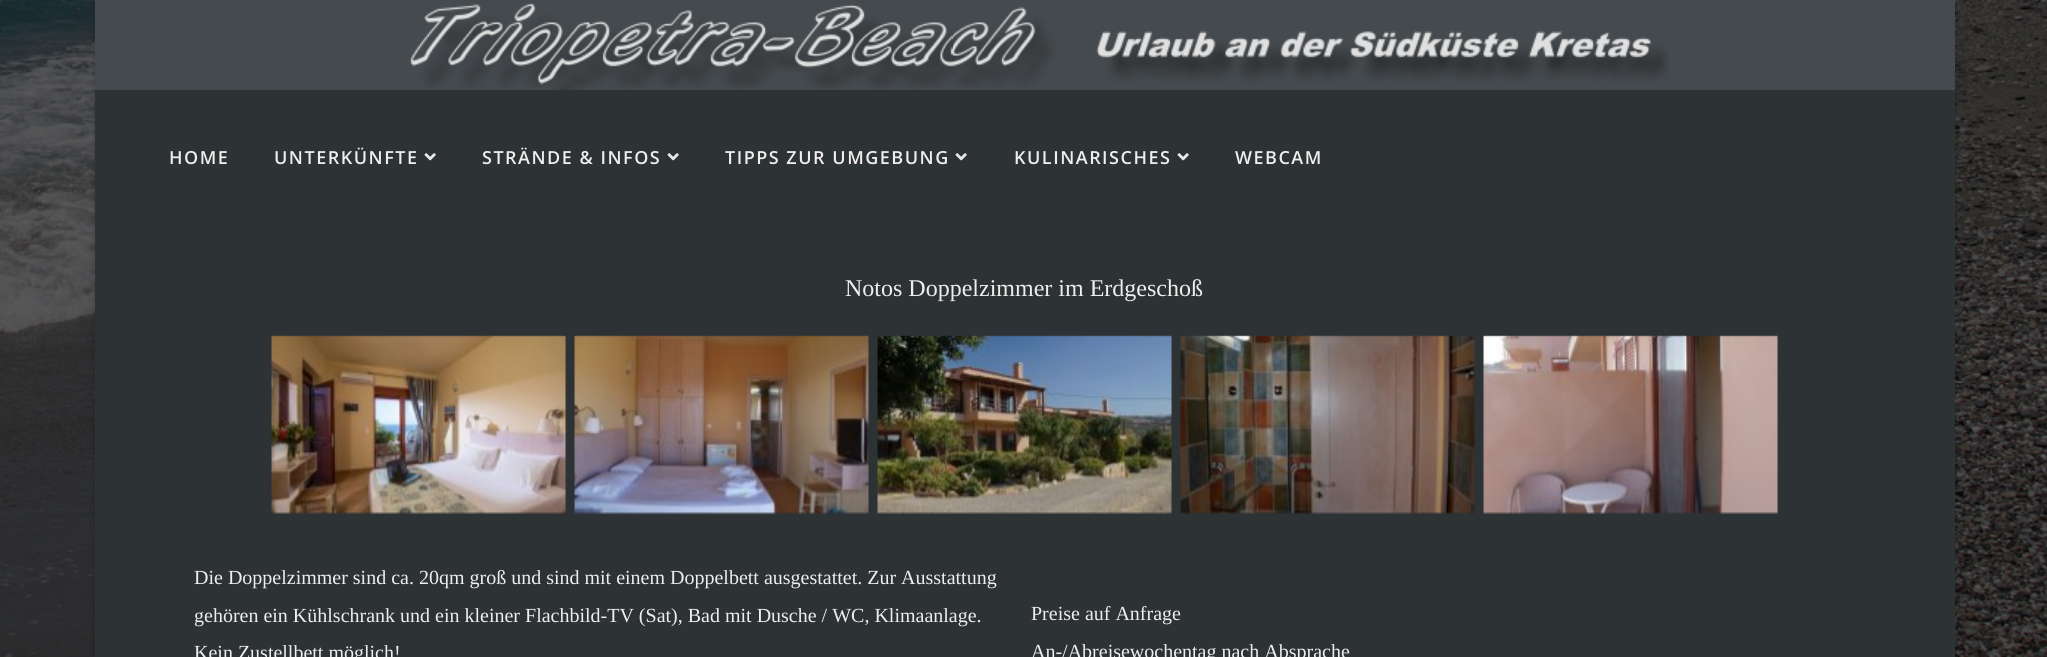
import math
import cairo


def write_spaced(ctx, x, y, s, letter, word):
	ctx.move_to(x, y)
	for ch in s:
		ctx.show_text(ch)
		ctx.rel_move_to(letter + word * (ch == ' '), 0)

def round_path(ctx, x, y, w, h, r):
	ctx.new_sub_path()
	for i, (u, v) in enumerate([(x + w - r, y + h - r), (x + r, y + h - r), (x + r, y + r), (x + w - r, y + r)]):
		ctx.arc(u, v, r, i * math.pi / 2, (i + 1) * math.pi / 2)
	ctx.close_path()

def blur_box(ctx, x, y, w, h, r, blur, alpha):
	ctx.push_group_with_content(cairo.CONTENT_ALPHA)
	ctx.set_operator(cairo.OPERATOR_SOURCE)
	for i in range(15, -16, -2):
		e = blur * i / 6
		if min(w, h) + 2 * e > 0:
			ctx.set_source_rgba(0, 0, 0, alpha * math.erfc((i - 1) / 8.5) / 2)
			round_path(ctx, x - e, y - e, w + 2 * e, h + 2 * e, max(0, min(r + e + blur * .6, min(w, h) / 2 + e)))
			ctx.fill()
	ctx.mask(ctx.pop_group())

def paste(ctx, path, x, y, w, h):
	ctx.save()
	ctx.set_source_surface(cairo.ImageSurface.create_from_png(path), x, y)
	ctx.rectangle(x, y, w, h)
	ctx.fill()
	ctx.restore()

def draw(ctx):
	ctx.set_source_rgb(1, 1, 1)
	ctx.paint()
	paste(ctx, 'media/1.png', 0, 0, 2047, 657)
	ctx.set_source_rgb(0, 0, 0)
	blur_box(ctx, 95, -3, 1860, 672, 0, 4, 0.2)
	ctx.set_source_rgb(0.271, 0.29, 0.306)
	ctx.rectangle(95, 0, 1860, 90)
	ctx.fill()
	paste(ctx, 'media/2.png', 410, 3, 1259, 87)
	ctx.set_source_rgb(0.176, 0.196, 0.208)
	ctx.rectangle(95, 90, 1860, 567)
	ctx.fill()
	ctx.select_font_face('Open Sans SemiBold')
	ctx.set_font_size(18)
	ctx.set_source_rgb(0.941, 0.929, 0.929)
	write_spaced(ctx, 169, 164, 'HOME', 1.5, 0)
	write_spaced(ctx, 274, 164, 'UNTERKÜNFTE', 1.5, 0)
	paste(ctx, 'media/3.png', 424, 153, 12, 8)
	write_spaced(ctx, 482, 164, 'STRÄNDE & INFOS', 1.5, 0)
	paste(ctx, 'media/3.png', 667, 153, 12, 8)
	write_spaced(ctx, 725, 164, 'TIPPS ZUR UMGEBUNG', 1.5, 0)
	paste(ctx, 'media/3.png', 955, 153, 12, 8)
	write_spaced(ctx, 1014, 164, 'KULINARISCHES', 1.5, 0)
	paste(ctx, 'media/3.png', 1177, 153, 12, 8)
	write_spaced(ctx, 1235, 164, 'WEBCAM', 1.5, 0)
	ctx.select_font_face('Liberation Serif')
	ctx.set_font_size(24)
	ctx.move_to(845, 296)
	ctx.show_text('Notos Doppelzimmer im Erdgeschoß')
	paste(ctx, 'media/4.png', 271, 335, 296, 179)
	paste(ctx, 'media/5.png', 574, 335, 295, 180)
	paste(ctx, 'media/6.png', 877, 335, 296, 179)
	paste(ctx, 'media/7.png', 1180, 335, 295, 179)
	paste(ctx, 'media/8.png', 1483, 335, 296, 179)
	ctx.set_font_size(20)
	for x, y, s in [
		(194, 584, 'Die Doppelzimmer sind ca. 20qm groß und sind mit einem Doppelbett ausgestattet. Zur Ausstattung'),
		(194, 622, 'gehören ein Kühlschrank und ein kleiner Flachbild-TV (Sat), Bad mit Dusche / WC, Klimaanlage.'),
		(194, 659, 'Kein Zustellbett möglich!'),
		(1031, 620, 'Preise auf Anfrage'),
		(1031, 658, 'An-/Abreisewochentag nach Absprache'),
	]:
		ctx.move_to(x, y)
		ctx.show_text(s)


surface = cairo.ImageSurface(cairo.FORMAT_RGB24, 2047, 657)
ctx = cairo.Context(surface)
options = cairo.FontOptions()
options.set_hint_metrics(cairo.HINT_METRICS_OFF)
options.set_hint_style(cairo.HINT_STYLE_NONE)
ctx.set_font_options(options)
ctx.set_miter_limit(4)
draw(ctx)
surface.write_to_png('image.png')
